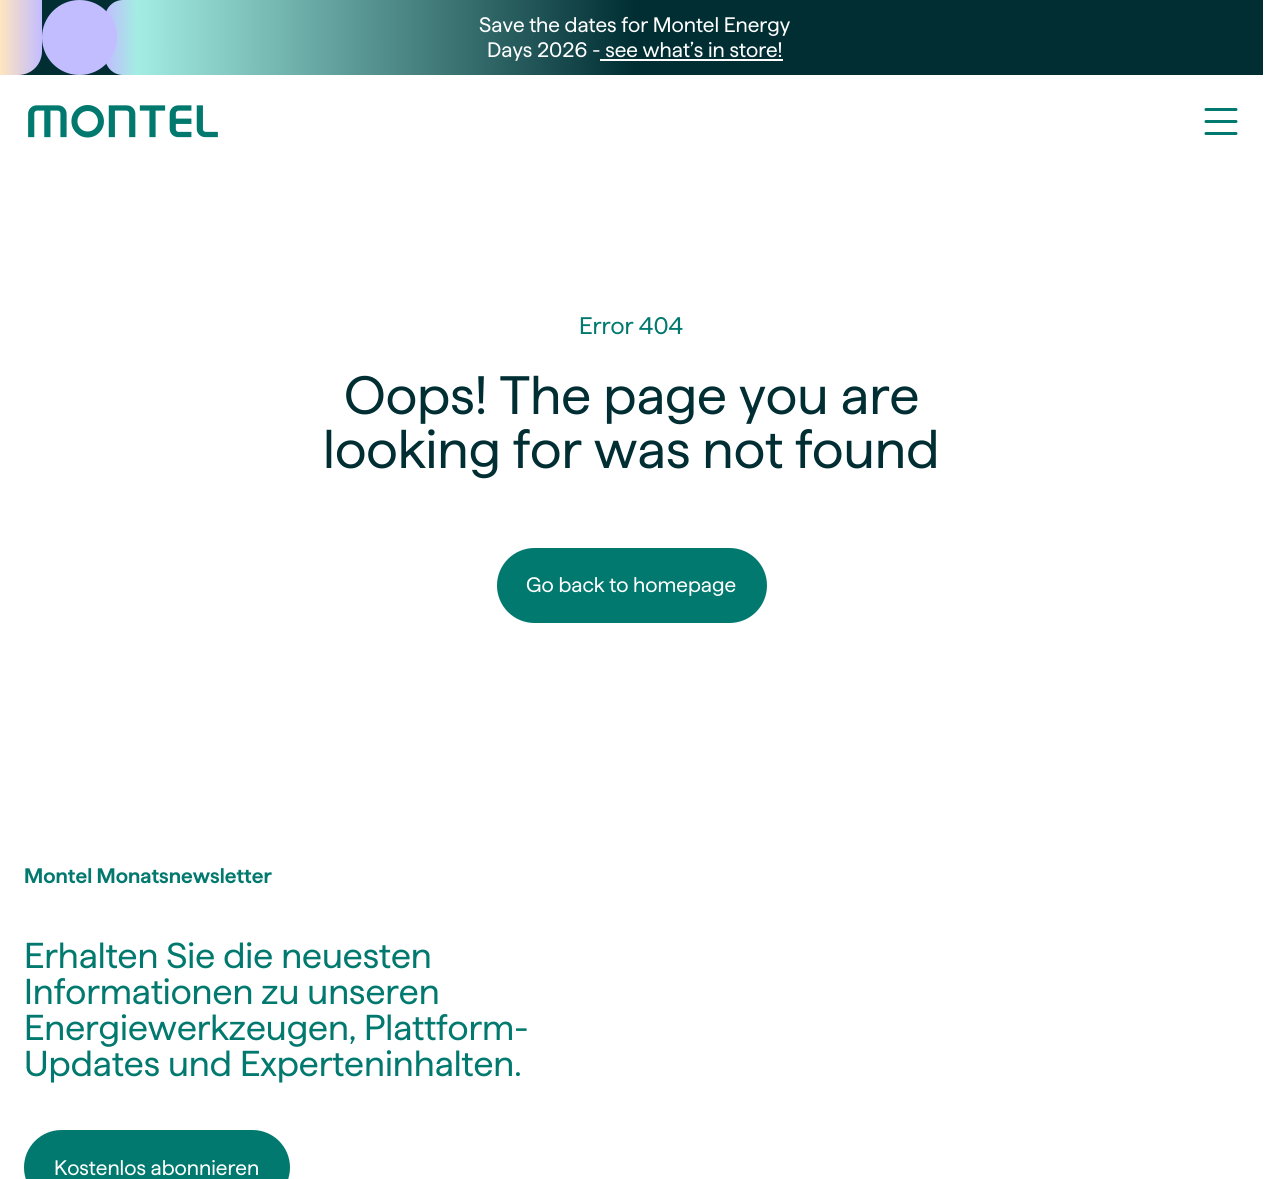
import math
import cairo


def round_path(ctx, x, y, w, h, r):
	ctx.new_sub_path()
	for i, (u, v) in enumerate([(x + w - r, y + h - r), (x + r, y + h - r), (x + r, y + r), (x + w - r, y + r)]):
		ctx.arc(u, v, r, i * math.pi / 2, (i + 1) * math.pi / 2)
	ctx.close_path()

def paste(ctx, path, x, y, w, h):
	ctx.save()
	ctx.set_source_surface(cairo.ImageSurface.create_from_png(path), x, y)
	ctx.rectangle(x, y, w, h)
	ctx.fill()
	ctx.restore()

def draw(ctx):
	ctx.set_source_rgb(1, 1, 1)
	ctx.paint()
	ctx.set_source_rgb(0, 0.18, 0.2)
	ctx.rectangle(18, 0, 1245, 75)
	ctx.fill()
	gradient = cairo.LinearGradient(0, 38, 42, 38)
	gradient.add_color_stop_rgba(0, 1, 0.898, 0.745, 1)
	gradient.add_color_stop_rgba(1, 0.761, 0.741, 1, 1)
	ctx.set_source(gradient)
	ctx.new_path()
	ctx.move_to(0, 0)
	ctx.line_to(42, 0)
	ctx.line_to(42, 51)
	ctx.curve_to(42, 64.5, 31.5, 75, 18, 75)
	ctx.line_to(0, 75)
	ctx.close_path()
	ctx.fill()
	gradient = cairo.LinearGradient(105, 38, 1164, 37)
	gradient.add_color_stop_rgba(0, 0.761, 0.741, 1, 1)
	gradient.add_color_stop_rgba(0.03, 0.639, 0.929, 0.89, 1)
	gradient.add_color_stop_rgba(0.5, 0, 0.18, 0.2, 1)
	ctx.set_source(gradient)
	round_path(ctx, 105, 0, 1059, 75, 18)
	ctx.fill()
	ctx.set_source_rgb(0.761, 0.741, 1)
	ctx.arc(79.5, 37.5, 37.5, 0, 2 * math.pi)
	ctx.fill()
	ctx.select_font_face('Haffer')
	ctx.set_font_size(21)
	ctx.set_source_rgb(1, 1, 1)
	ctx.move_to(479, 32)
	ctx.show_text('Save the dates for Montel Energy')
	ctx.move_to(487, 57)
	ctx.show_text('Days 2026 - see what’s in store!')
	ctx.rectangle(600, 59, 183, 2)
	ctx.fill()
	paste(ctx, 'media/1.png', 28, 105, 190, 33)
	ctx.new_path()
	ctx.move_to(1206, 109.5)
	ctx.line_to(1236, 109.5)
	ctx.move_to(1206, 121.5)
	ctx.line_to(1236, 121.5)
	ctx.move_to(1206, 133.5)
	ctx.line_to(1236, 133.5)
	ctx.set_source_rgb(0.004, 0.475, 0.431)
	ctx.set_line_width(3)
	ctx.set_line_cap(cairo.LINE_CAP_ROUND)
	ctx.set_line_join(cairo.LINE_JOIN_ROUND)
	ctx.stroke()
	ctx.set_font_size(24)
	ctx.move_to(579, 334)
	ctx.show_text('Error 404')
	ctx.set_font_size(54)
	ctx.set_source_rgb(0, 0.18, 0.2)
	ctx.move_to(344, 414)
	ctx.show_text('Oops! The page you are')
	ctx.move_to(323, 468)
	ctx.show_text('looking for was not found')
	ctx.set_source_rgb(0.004, 0.475, 0.431)
	round_path(ctx, 497, 548, 270, 75, 37.5)
	ctx.fill()
	ctx.set_font_size(21)
	ctx.set_source_rgb(1, 1, 1)
	ctx.move_to(526, 592)
	ctx.show_text('Go back to homepage')
	ctx.select_font_face('Haffer SemiBold')
	ctx.set_source_rgb(0.004, 0.475, 0.431)
	ctx.move_to(24, 883)
	ctx.show_text('Montel Monatsnewsletter')
	ctx.select_font_face('Haffer')
	ctx.set_font_size(36)
	for x, y, s in [
		(24, 968, 'Erhalten Sie die neuesten'),
		(24, 1004, 'Informationen zu unseren'),
		(24, 1040, 'Energiewerkzeugen, Plattform-'),
		(24, 1076, 'Updates und Experteninhalten.'),
	]:
		ctx.move_to(x, y)
		ctx.show_text(s)
	round_path(ctx, 24, 1130, 266, 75, 37.5)
	ctx.fill()
	ctx.set_font_size(21)
	ctx.set_source_rgb(1, 1, 1)
	ctx.move_to(54, 1175)
	ctx.show_text('Kostenlos abonnieren')


surface = cairo.ImageSurface(cairo.FORMAT_RGB24, 1285, 1179)
ctx = cairo.Context(surface)
options = cairo.FontOptions()
options.set_hint_metrics(cairo.HINT_METRICS_OFF)
options.set_hint_style(cairo.HINT_STYLE_NONE)
ctx.set_font_options(options)
ctx.set_miter_limit(4)
draw(ctx)
surface.write_to_png('image.png')
